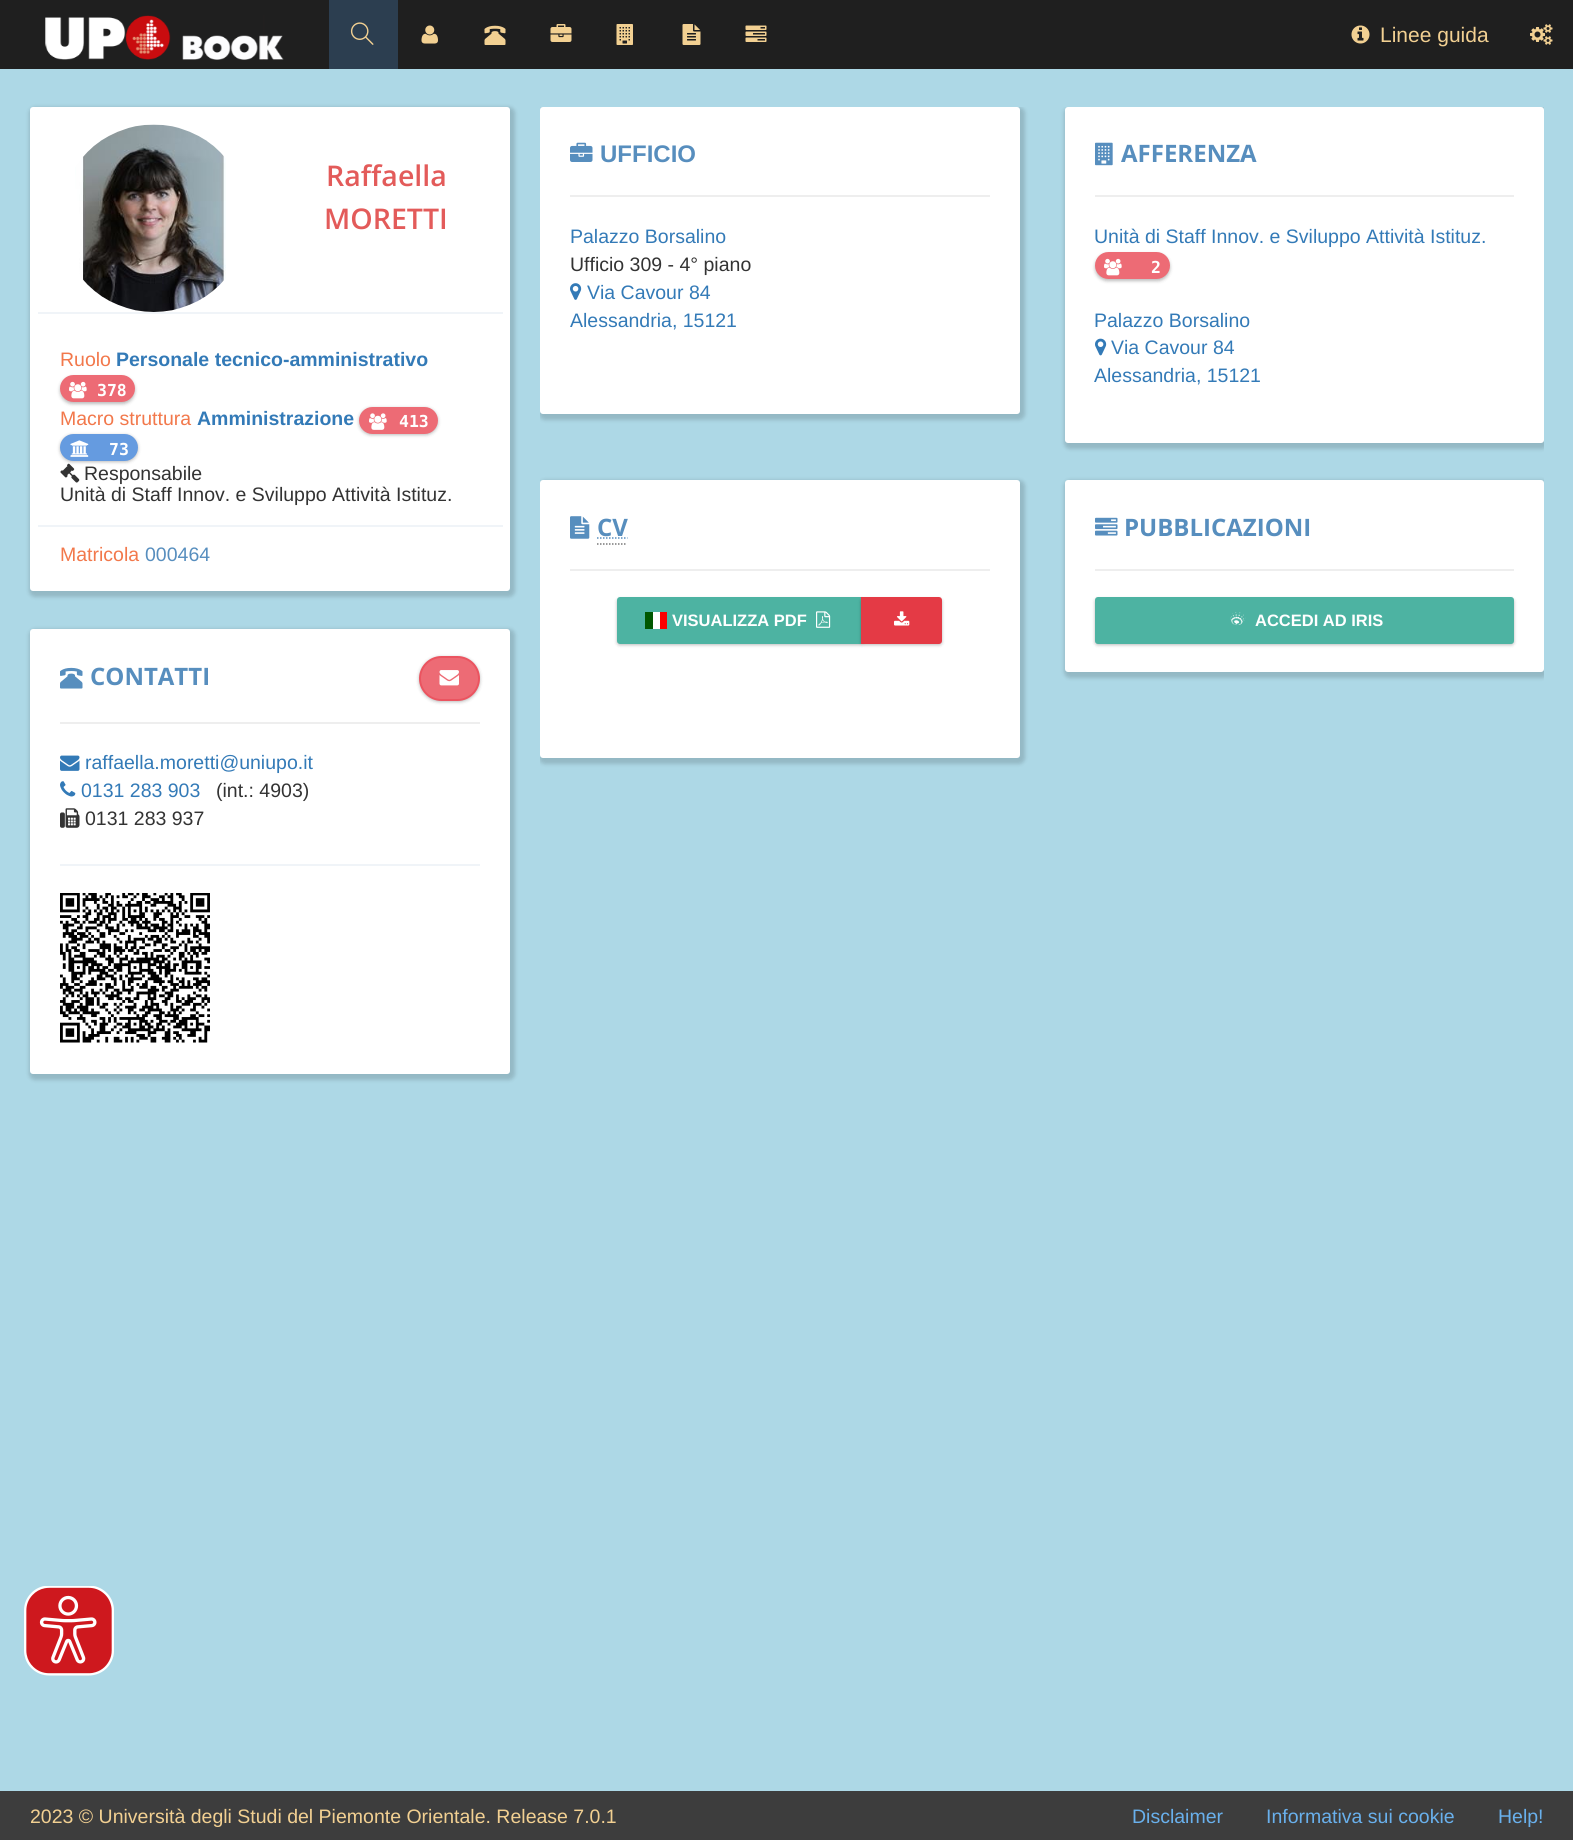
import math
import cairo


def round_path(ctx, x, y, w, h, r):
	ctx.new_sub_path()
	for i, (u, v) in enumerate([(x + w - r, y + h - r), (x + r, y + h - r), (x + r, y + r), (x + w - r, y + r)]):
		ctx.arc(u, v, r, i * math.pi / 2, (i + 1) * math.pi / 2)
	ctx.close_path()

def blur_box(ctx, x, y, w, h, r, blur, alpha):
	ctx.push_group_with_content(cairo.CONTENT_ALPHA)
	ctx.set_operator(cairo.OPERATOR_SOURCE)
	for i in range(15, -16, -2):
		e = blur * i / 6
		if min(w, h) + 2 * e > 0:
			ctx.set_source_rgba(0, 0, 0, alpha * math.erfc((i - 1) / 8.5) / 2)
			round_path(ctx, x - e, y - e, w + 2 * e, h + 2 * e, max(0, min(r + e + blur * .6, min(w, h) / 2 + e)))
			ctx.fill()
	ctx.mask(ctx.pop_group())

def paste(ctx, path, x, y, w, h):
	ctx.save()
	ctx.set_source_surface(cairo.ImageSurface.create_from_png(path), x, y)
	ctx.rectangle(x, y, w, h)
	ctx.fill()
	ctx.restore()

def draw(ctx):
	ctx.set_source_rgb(0.239, 0.239, 0.239)
	ctx.paint()
	ctx.set_source_rgb(0.122, 0.122, 0.122)
	ctx.rectangle(0, 0, 1573, 69)
	ctx.fill()
	paste(ctx, 'media/1.png', 45, 15, 239, 45)
	ctx.set_source_rgb(0.173, 0.243, 0.314)
	ctx.rectangle(329, 0, 69, 69)
	ctx.fill()
	paste(ctx, 'media/2.png', 350, 22, 24, 23)
	paste(ctx, 'media/3.png', 421, 25, 17, 19)
	paste(ctx, 'media/4.png', 484, 25, 22, 20)
	paste(ctx, 'media/5.png', 550, 24, 22, 18)
	paste(ctx, 'media/6.png', 616, 24, 17, 21)
	paste(ctx, 'media/7.png', 682, 24, 19, 21)
	paste(ctx, 'media/8.png', 745, 25, 22, 17)
	paste(ctx, 'media/9.png', 1351, 25, 19, 19)
	ctx.select_font_face('Liberation Sans')
	ctx.set_font_size(21)
	ctx.set_source_rgb(0.949, 0.816, 0.573)
	ctx.move_to(1380, 42)
	ctx.show_text('Linee guida')
	paste(ctx, 'media/10.png', 1530, 24, 23, 21)
	ctx.set_source_rgb(0.678, 0.847, 0.902)
	ctx.rectangle(0, 69, 1573, 1722)
	ctx.fill()
	ctx.set_source_rgb(0, 0, 0)
	blur_box(ctx, 29, 107, 486, 490, 6, 2, 0.15)
	ctx.set_source_rgb(1, 1, 1)
	round_path(ctx, 30, 107, 480, 484, 3)
	ctx.fill()
	paste(ctx, 'media/11.png', 75, 124, 151, 188)
	ctx.select_font_face('Open Sans SemiBold')
	ctx.set_font_size(28.5)
	ctx.set_source_rgb(0.89, 0.357, 0.353)
	ctx.move_to(326, 186)
	ctx.show_text('Raffaella')
	ctx.move_to(324, 229)
	ctx.show_text('MORETTI')
	ctx.set_source_rgb(0.941, 0.957, 0.969)
	ctx.rectangle(38, 312, 465, 2)
	ctx.fill()
	ctx.select_font_face('Liberation Sans')
	ctx.set_font_size(19.5)
	ctx.set_source_rgb(0.949, 0.471, 0.294)
	ctx.move_to(60, 366)
	ctx.show_text('Ruolo')
	ctx.select_font_face('Liberation Sans', cairo.FONT_SLANT_NORMAL, cairo.FONT_WEIGHT_BOLD)
	ctx.set_source_rgb(0.2, 0.478, 0.718)
	ctx.move_to(116, 366)
	ctx.show_text('Personale tecnico-amministrativo')
	ctx.set_source_rgb(0, 0, 0)
	blur_box(ctx, 60, 377, 75, 27, 13.5, 1.5, 0.18)
	blur_box(ctx, 60, 377, 75, 27, 13.5, 2, 0.1)
	ctx.set_source_rgb(0.929, 0.42, 0.459)
	round_path(ctx, 60, 375, 75, 27, 13.5)
	ctx.fill()
	paste(ctx, 'media/12.png', 69, 381, 18, 18)
	ctx.select_font_face('DejaVu Sans Mono', cairo.FONT_SLANT_NORMAL, cairo.FONT_WEIGHT_BOLD)
	ctx.set_font_size(16.5)
	ctx.set_source_rgb(1, 1, 1)
	ctx.move_to(97, 396)
	ctx.show_text('378')
	ctx.select_font_face('Liberation Sans', cairo.FONT_SLANT_NORMAL, cairo.FONT_WEIGHT_BOLD)
	ctx.set_font_size(19.5)
	ctx.set_source_rgb(0.2, 0.478, 0.718)
	ctx.move_to(197, 425)
	ctx.show_text('Amministrazione')
	ctx.set_source_rgb(0, 0, 0)
	blur_box(ctx, 359, 408, 79, 27, 13.5, 1.5, 0.18)
	blur_box(ctx, 359, 408, 79, 27, 13.5, 2, 0.1)
	ctx.set_source_rgb(0.929, 0.42, 0.459)
	round_path(ctx, 359, 407, 79, 27, 13.5)
	ctx.fill()
	paste(ctx, 'media/13.png', 369, 413, 18, 17)
	ctx.select_font_face('DejaVu Sans Mono', cairo.FONT_SLANT_NORMAL, cairo.FONT_WEIGHT_BOLD)
	ctx.set_font_size(16.5)
	ctx.set_source_rgb(1, 1, 1)
	ctx.move_to(399, 427)
	ctx.show_text('413')
	ctx.set_source_rgb(0, 0, 0)
	blur_box(ctx, 60, 435, 78, 27, 13.5, 1.5, 0.18)
	blur_box(ctx, 60, 435, 78, 27, 13.5, 2, 0.1)
	ctx.set_source_rgb(0.396, 0.608, 0.878)
	round_path(ctx, 60, 434, 78, 27, 13.5)
	ctx.fill()
	paste(ctx, 'media/14.png', 70, 440, 19, 17)
	ctx.set_source_rgb(1, 1, 1)
	ctx.move_to(109, 455)
	ctx.show_text('73')
	ctx.select_font_face('Liberation Sans')
	ctx.set_font_size(19.5)
	ctx.set_source_rgb(0.949, 0.471, 0.294)
	ctx.move_to(60, 425)
	ctx.show_text('Macro struttura')
	paste(ctx, 'media/15.png', 60, 463, 20, 20)
	ctx.set_source_rgb(0.2, 0.2, 0.2)
	ctx.move_to(84, 480)
	ctx.show_text('Responsabile')
	ctx.move_to(60, 501)
	ctx.show_text('Unità di Staff Innov. e Sviluppo Attività Istituz.')
	ctx.set_source_rgb(0.941, 0.957, 0.969)
	ctx.rectangle(38, 525, 465, 2)
	ctx.fill()
	ctx.set_source_rgb(0.949, 0.471, 0.294)
	ctx.move_to(60, 561)
	ctx.show_text('Matricola')
	ctx.set_source_rgb(0.341, 0.557, 0.745)
	ctx.move_to(145, 561)
	ctx.show_text('000464')
	ctx.set_source_rgb(0, 0, 0)
	blur_box(ctx, 29, 629, 486, 451, 6, 2, 0.15)
	ctx.set_source_rgb(1, 1, 1)
	round_path(ctx, 30, 629, 480, 445, 3)
	ctx.fill()
	ctx.set_source_rgb(0.933, 0.933, 0.933)
	ctx.rectangle(60, 722, 420, 2)
	ctx.fill()
	paste(ctx, 'media/16.png', 60, 667, 23, 22)
	ctx.select_font_face('Open Sans', cairo.FONT_SLANT_NORMAL, cairo.FONT_WEIGHT_BOLD)
	ctx.set_font_size(24)
	ctx.set_source_rgb(0.341, 0.557, 0.745)
	ctx.move_to(90, 685)
	ctx.show_text('CONTATTI')
	ctx.set_source_rgb(0, 0, 0)
	blur_box(ctx, 419, 657, 61, 45, 22.5, 1.5, 0.18)
	blur_box(ctx, 419, 657, 61, 45, 22.5, 2, 0.1)
	ctx.set_source_rgb(0.929, 0.42, 0.459)
	round_path(ctx, 420, 657, 59, 43, 21.5)
	ctx.fill_preserve()
	ctx.set_source_rgb(0.918, 0.329, 0.376)
	ctx.stroke()
	paste(ctx, 'media/17.png', 439, 670, 20, 16)
	ctx.set_source_rgb(0.941, 0.957, 0.969)
	ctx.rectangle(60, 864, 420, 2)
	ctx.fill()
	paste(ctx, 'media/18.png', 60, 755, 20, 16)
	ctx.select_font_face('Liberation Sans')
	ctx.set_font_size(19.5)
	ctx.set_source_rgb(0.2, 0.478, 0.718)
	ctx.move_to(85, 769)
	ctx.show_text('raffaella.moretti@uniupo.it')
	paste(ctx, 'media/19.png', 60, 781, 16, 16)
	ctx.move_to(81, 797)
	ctx.show_text('0131 283 903')
	ctx.set_source_rgb(0.2, 0.2, 0.2)
	ctx.move_to(216, 797)
	ctx.show_text('(int.: 4903)')
	paste(ctx, 'media/20.png', 60, 808, 20, 20)
	ctx.move_to(85, 825)
	ctx.show_text('0131 283 937')
	paste(ctx, 'media/21.png', 60, 893, 150, 150)
	ctx.save()
	ctx.rectangle(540, 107, 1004, 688)
	ctx.clip()
	ctx.set_source_rgb(0, 0, 0)
	blur_box(ctx, 539, 107, 486, 313, 6, 2, 0.15)
	ctx.restore()
	ctx.set_source_rgb(1, 1, 1)
	round_path(ctx, 540, 107, 480, 307, 3)
	ctx.fill()
	ctx.set_source_rgb(0.933, 0.933, 0.933)
	ctx.rectangle(570, 195, 420, 2)
	ctx.fill()
	paste(ctx, 'media/22.png', 570, 142, 23, 20)
	ctx.select_font_face('Liberation Sans', cairo.FONT_SLANT_NORMAL, cairo.FONT_WEIGHT_BOLD)
	ctx.set_font_size(24)
	ctx.set_source_rgb(0.341, 0.557, 0.745)
	ctx.move_to(600, 162)
	ctx.show_text('UFFICIO')
	ctx.select_font_face('Liberation Sans')
	ctx.set_font_size(19.5)
	ctx.set_source_rgb(0.2, 0.478, 0.718)
	ctx.move_to(570, 243)
	ctx.show_text('Palazzo Borsalino')
	ctx.set_source_rgb(0.2, 0.2, 0.2)
	ctx.move_to(570, 271)
	ctx.show_text('Ufficio 309 - 4° piano')
	paste(ctx, 'media/23.png', 570, 283, 12, 17)
	ctx.set_source_rgb(0.2, 0.478, 0.718)
	ctx.move_to(587, 299)
	ctx.show_text('Via Cavour 84')
	ctx.move_to(570, 327)
	ctx.show_text('Alessandria, 15121')
	ctx.save()
	ctx.rectangle(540, 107, 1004, 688)
	ctx.clip()
	ctx.set_source_rgb(0, 0, 0)
	blur_box(ctx, 1064, 107, 484, 342, 6, 2, 0.15)
	ctx.restore()
	ctx.set_source_rgb(1, 1, 1)
	round_path(ctx, 1065, 107, 479, 336, 3)
	ctx.fill()
	ctx.set_source_rgb(0.933, 0.933, 0.933)
	ctx.rectangle(1095, 195, 419, 2)
	ctx.fill()
	paste(ctx, 'media/24.png', 1095, 142, 18, 24)
	ctx.select_font_face('Open Sans', cairo.FONT_SLANT_NORMAL, cairo.FONT_WEIGHT_BOLD)
	ctx.set_font_size(24)
	ctx.set_source_rgb(0.341, 0.557, 0.745)
	ctx.move_to(1121, 162)
	ctx.show_text('AFFERENZA')
	ctx.select_font_face('Liberation Sans')
	ctx.set_font_size(19.5)
	ctx.set_source_rgb(0.2, 0.478, 0.718)
	ctx.move_to(1094, 243)
	ctx.show_text('Unità di Staff Innov. e Sviluppo Attività Istituz.')
	ctx.set_source_rgb(0, 0, 0)
	blur_box(ctx, 1095, 254, 75, 27, 13.5, 1.5, 0.18)
	blur_box(ctx, 1095, 254, 75, 27, 13.5, 2, 0.1)
	ctx.set_source_rgb(0.929, 0.42, 0.459)
	round_path(ctx, 1095, 252, 75, 27, 13.5)
	ctx.fill()
	paste(ctx, 'media/12.png', 1104, 258, 18, 18)
	ctx.select_font_face('DejaVu Sans Mono', cairo.FONT_SLANT_NORMAL, cairo.FONT_WEIGHT_BOLD)
	ctx.set_font_size(16.5)
	ctx.set_source_rgb(1, 1, 1)
	ctx.move_to(1151, 273)
	ctx.show_text('2')
	ctx.select_font_face('Liberation Sans')
	ctx.set_font_size(19.5)
	ctx.set_source_rgb(0.2, 0.478, 0.718)
	ctx.move_to(1094, 327)
	ctx.show_text('Palazzo Borsalino')
	paste(ctx, 'media/25.png', 1095, 338, 12, 18)
	ctx.move_to(1111, 354)
	ctx.show_text('Via Cavour 84')
	ctx.move_to(1094, 382)
	ctx.show_text('Alessandria, 15121')
	ctx.save()
	ctx.rectangle(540, 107, 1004, 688)
	ctx.clip()
	ctx.set_source_rgb(0, 0, 0)
	blur_box(ctx, 539, 480, 486, 284, 6, 2, 0.15)
	ctx.restore()
	ctx.set_source_rgb(1, 1, 1)
	round_path(ctx, 540, 480, 480, 278, 3)
	ctx.fill()
	ctx.set_source_rgb(0.933, 0.933, 0.933)
	ctx.rectangle(570, 569, 420, 2)
	ctx.fill()
	paste(ctx, 'media/26.png', 570, 516, 20, 23)
	ctx.select_font_face('Open Sans', cairo.FONT_SLANT_NORMAL, cairo.FONT_WEIGHT_BOLD)
	ctx.set_font_size(24)
	ctx.set_source_rgb(0.341, 0.557, 0.745)
	ctx.move_to(597, 536)
	ctx.show_text('CV')
	ctx.new_path()
	ctx.move_to(597, 544)
	ctx.line_to(627, 544)
	ctx.set_source_rgb(0.467, 0.467, 0.467)
	ctx.set_line_width(1.5)
	ctx.set_dash([1.5, 1.5])
	ctx.stroke()
	ctx.new_path()
	ctx.move_to(597, 538)
	ctx.line_to(627.5, 538)
	ctx.set_source_rgb(0.341, 0.557, 0.745)
	ctx.stroke()
	ctx.set_source_rgb(0, 0, 0)
	blur_box(ctx, 617, 599, 246, 46, 3, 1.5, 0.18)
	blur_box(ctx, 617, 599, 246, 46, 3, 2, 0.1)
	ctx.set_source_rgb(0.302, 0.702, 0.635)
	ctx.new_path()
	ctx.move_to(620, 598)
	ctx.line_to(862, 598)
	ctx.line_to(862, 643)
	ctx.line_to(620, 643)
	ctx.curve_to(619, 643, 618, 642, 618, 641)
	ctx.line_to(618, 600)
	ctx.curve_to(618, 599, 619, 598, 620, 598)
	ctx.close_path()
	ctx.fill_preserve()
	ctx.set_line_width(2)
	ctx.set_dash([])
	ctx.stroke()
	ctx.set_source_rgb(1, 1, 1)
	ctx.rectangle(653, 612, 7, 17)
	ctx.fill()
	ctx.set_source_rgb(0, 0.341, 0)
	ctx.rectangle(645, 612, 8, 17)
	ctx.fill()
	ctx.set_source_rgb(0.988, 0, 0)
	ctx.rectangle(660, 612, 7, 17)
	ctx.fill()
	ctx.select_font_face('Liberation Sans', cairo.FONT_SLANT_NORMAL, cairo.FONT_WEIGHT_BOLD)
	ctx.set_font_size(16.5)
	ctx.set_source_rgb(1, 1, 1)
	ctx.move_to(672, 626)
	ctx.show_text('VISUALIZZA PDF')
	paste(ctx, 'media/27.png', 816, 611, 15, 17)
	ctx.set_source_rgb(0, 0, 0)
	blur_box(ctx, 861, 599, 81, 46, 3, 1.5, 0.18)
	blur_box(ctx, 861, 599, 81, 46, 3, 2, 0.1)
	ctx.set_source_rgb(0.894, 0.227, 0.271)
	ctx.new_path()
	ctx.move_to(862, 598)
	ctx.line_to(939, 598)
	ctx.curve_to(940, 598, 941, 599, 941, 600)
	ctx.line_to(941, 641)
	ctx.curve_to(941, 642, 940, 643, 939, 643)
	ctx.line_to(862, 643)
	ctx.close_path()
	ctx.fill_preserve()
	ctx.stroke()
	paste(ctx, 'media/28.png', 894, 611, 16, 15)
	ctx.save()
	ctx.rectangle(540, 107, 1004, 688)
	ctx.clip()
	ctx.set_source_rgb(0, 0, 0)
	blur_box(ctx, 1064, 480, 484, 198, 6, 2, 0.15)
	ctx.restore()
	ctx.set_source_rgb(1, 1, 1)
	round_path(ctx, 1065, 480, 479, 192, 3)
	ctx.fill()
	ctx.set_source_rgb(0.933, 0.933, 0.933)
	ctx.rectangle(1095, 569, 419, 2)
	ctx.fill()
	paste(ctx, 'media/29.png', 1095, 517, 23, 19)
	ctx.select_font_face('Open Sans', cairo.FONT_SLANT_NORMAL, cairo.FONT_WEIGHT_BOLD)
	ctx.set_font_size(24)
	ctx.set_source_rgb(0.341, 0.557, 0.745)
	ctx.move_to(1124, 536)
	ctx.show_text('PUBBLICAZIONI')
	ctx.set_source_rgb(0, 0, 0)
	blur_box(ctx, 1095, 599, 419, 46, 3, 1.5, 0.18)
	blur_box(ctx, 1095, 599, 419, 46, 3, 2, 0.1)
	ctx.set_source_rgb(0.302, 0.702, 0.635)
	round_path(ctx, 1096, 598, 417, 45, 2)
	ctx.fill_preserve()
	ctx.stroke()
	paste(ctx, 'media/30.png', 1230, 612, 16, 14)
	ctx.select_font_face('Liberation Sans', cairo.FONT_SLANT_NORMAL, cairo.FONT_WEIGHT_BOLD)
	ctx.set_font_size(16.5)
	ctx.set_source_rgb(1, 1, 1)
	ctx.move_to(1255, 626)
	ctx.show_text('ACCEDI AD IRIS')
	paste(ctx, 'media/31.png', 24, 1586, 90, 90)
	ctx.select_font_face('Liberation Sans')
	ctx.set_font_size(19.5)
	ctx.set_source_rgb(0.949, 0.816, 0.573)
	ctx.move_to(30, 1823)
	ctx.show_text('2023 © Università degli Studi del Piemonte Orientale. Release 7.0.1')
	ctx.set_source_rgb(0.412, 0.69, 0.925)
	for x, y, s in [
		(1132, 1823, 'Disclaimer'),
		(1266, 1823, 'Informativa sui cookie'),
		(1498, 1823, 'Help!'),
	]:
		ctx.move_to(x, y)
		ctx.show_text(s)


surface = cairo.ImageSurface(cairo.FORMAT_RGB24, 1573, 1840)
ctx = cairo.Context(surface)
options = cairo.FontOptions()
options.set_hint_metrics(cairo.HINT_METRICS_OFF)
options.set_hint_style(cairo.HINT_STYLE_NONE)
ctx.set_font_options(options)
ctx.set_miter_limit(4)
draw(ctx)
surface.write_to_png('image.png')
